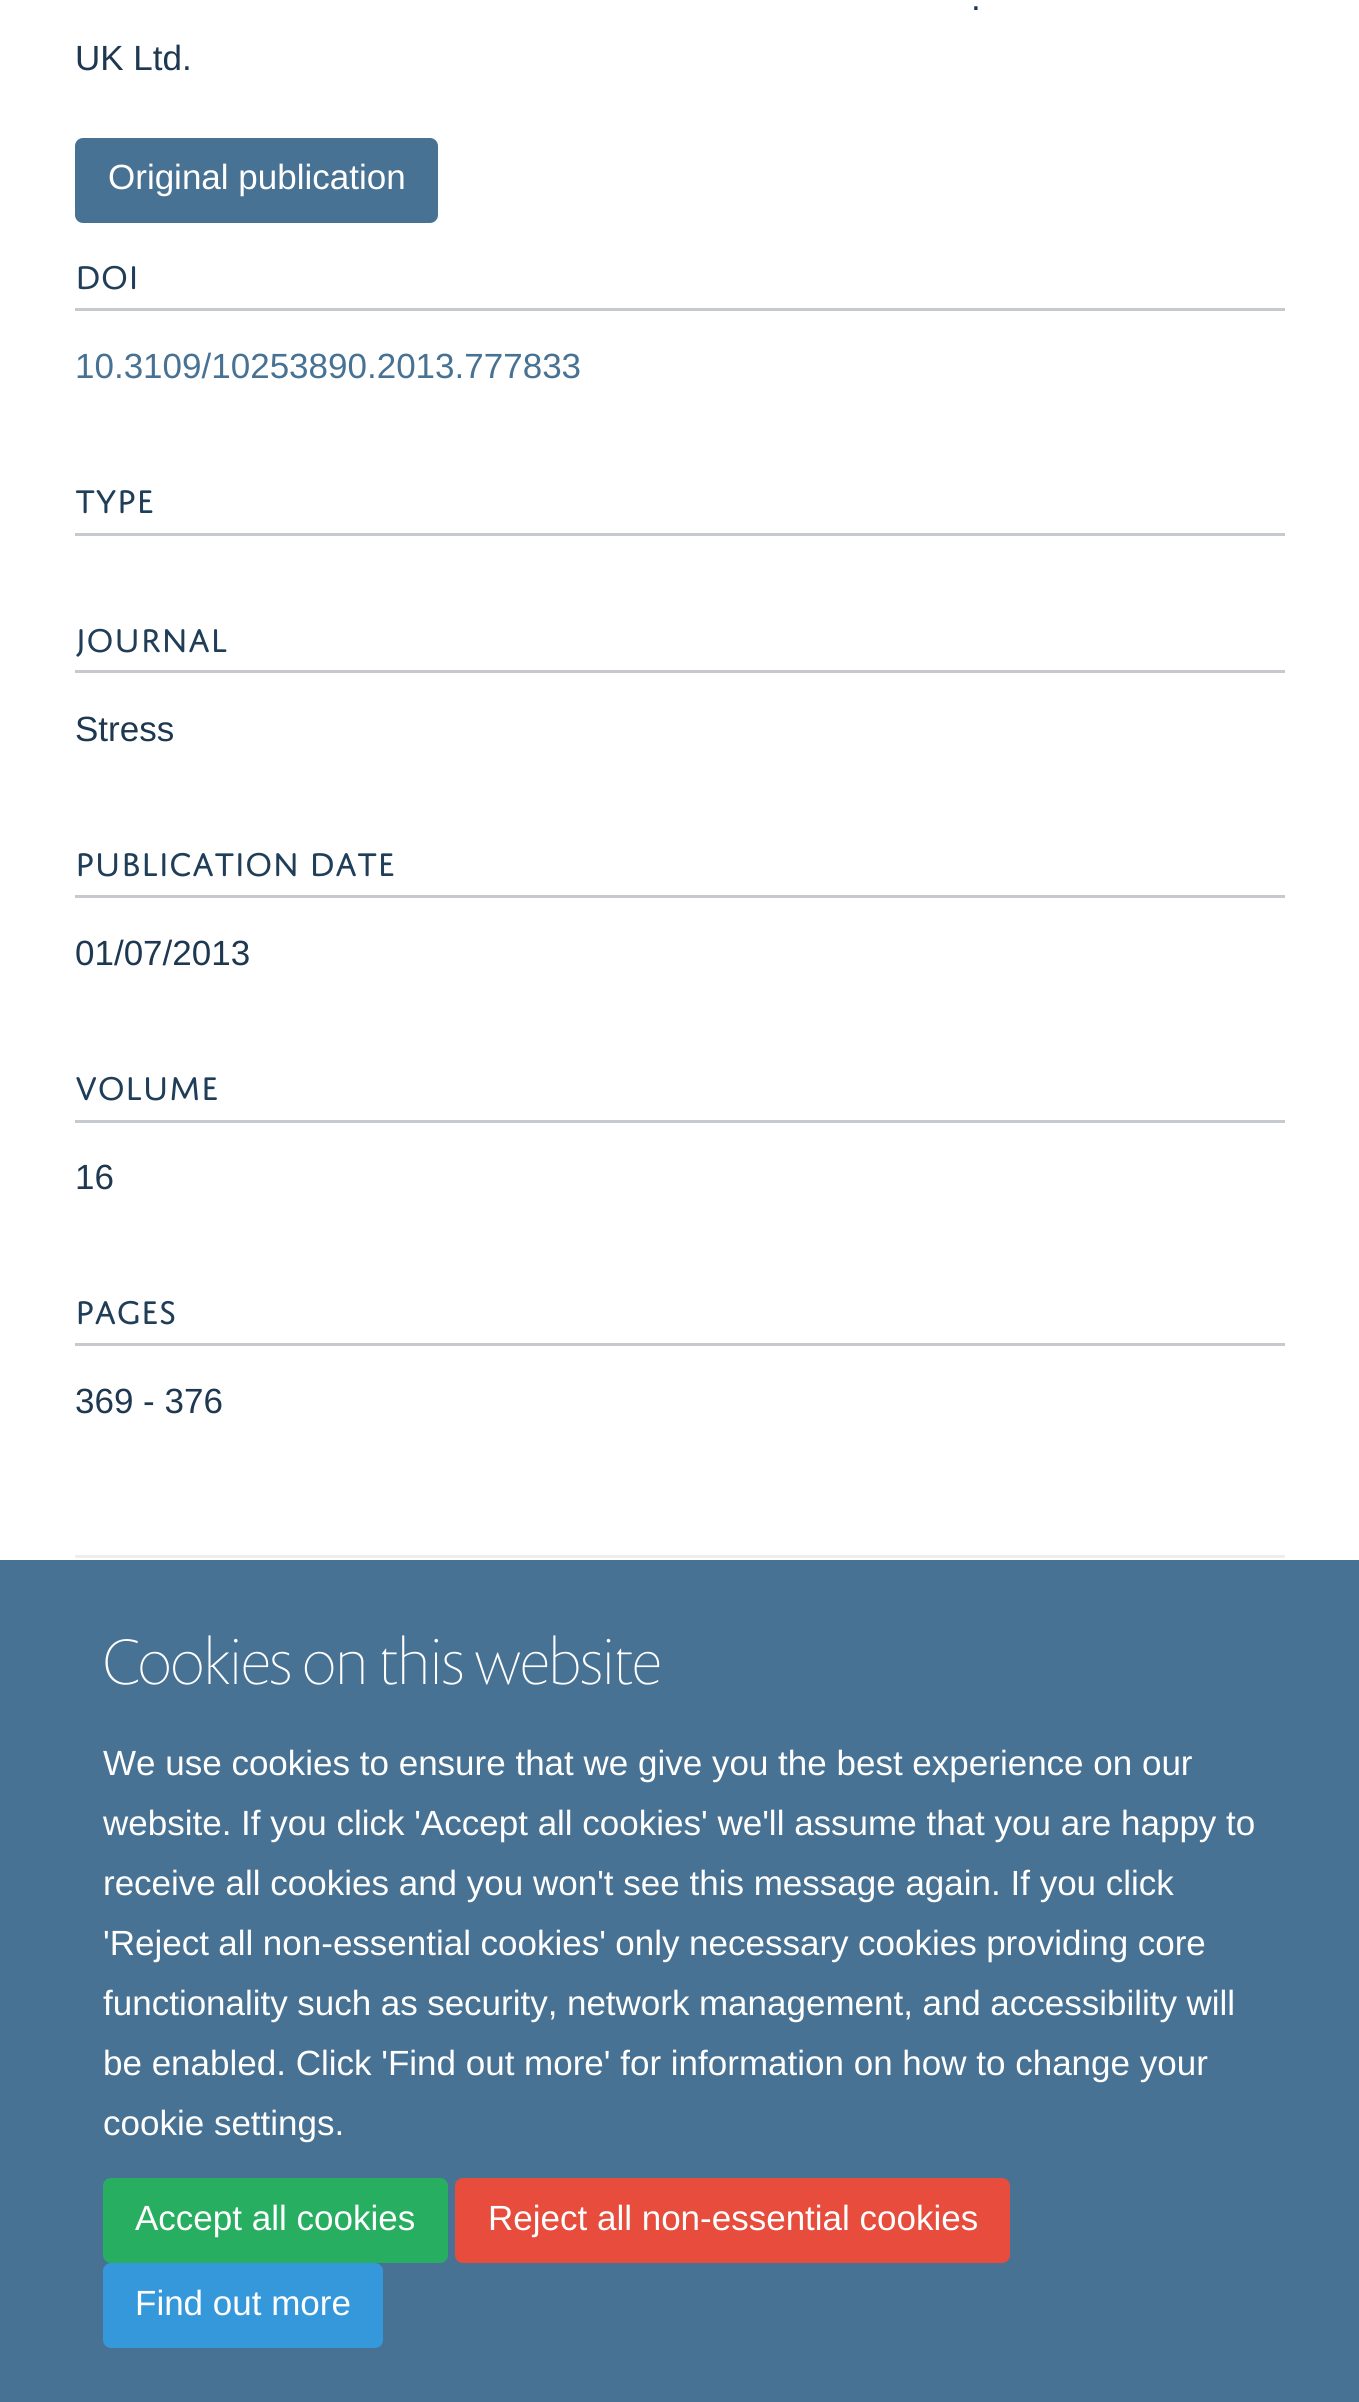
import math
import cairo


def write_spaced(ctx, x, y, s, letter, word):
	ctx.move_to(x, y)
	for ch in s:
		ctx.show_text(ch)
		ctx.rel_move_to(letter + word * (ch == ' '), 0)

def round_path(ctx, x, y, w, h, r):
	ctx.new_sub_path()
	for i, (u, v) in enumerate([(x + w - r, y + h - r), (x + r, y + h - r), (x + r, y + r), (x + w - r, y + r)]):
		ctx.arc(u, v, r, i * math.pi / 2, (i + 1) * math.pi / 2)
	ctx.close_path()

def draw(ctx):
	ctx.set_source_rgb(1, 1, 1)
	ctx.paint()
	ctx.select_font_face('Liberation Sans')
	ctx.set_font_size(35)
	ctx.set_source_rgb(0.114, 0.22, 0.314)
	ctx.move_to(971, 10)
	ctx.show_text('.')
	ctx.move_to(75, 70)
	ctx.show_text('UK Ltd.')
	ctx.set_source_rgb(0.282, 0.447, 0.58)
	round_path(ctx, 76.5, 139.5, 360, 82, 6.5)
	ctx.fill_preserve()
	ctx.set_line_width(3)
	ctx.stroke()
	ctx.set_source_rgb(1, 1, 1)
	ctx.move_to(108, 189)
	ctx.show_text('Original publication')
	ctx.set_source_rgb(0.776, 0.792, 0.812)
	ctx.rectangle(75, 308, 1210, 3)
	ctx.fill()
	ctx.select_font_face('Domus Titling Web')
	ctx.set_source_rgb(0.125, 0.243, 0.345)
	ctx.move_to(75, 289)
	ctx.show_text('DOI')
	ctx.select_font_face('Liberation Sans')
	ctx.set_source_rgb(0.282, 0.447, 0.58)
	ctx.move_to(75, 378)
	ctx.show_text('10.3109/10253890.2013.777833')
	ctx.set_source_rgb(0.776, 0.792, 0.812)
	ctx.rectangle(75, 533, 1210, 3)
	ctx.fill()
	ctx.select_font_face('Domus Titling Web')
	ctx.set_source_rgb(0.125, 0.243, 0.345)
	ctx.move_to(75, 513)
	ctx.show_text('TYPE')
	ctx.set_source_rgb(0.776, 0.792, 0.812)
	ctx.rectangle(75, 670, 1210, 3)
	ctx.fill()
	ctx.set_source_rgb(0.125, 0.243, 0.345)
	ctx.move_to(75, 652)
	ctx.show_text('JOURNAL')
	ctx.select_font_face('Liberation Sans')
	ctx.set_source_rgb(0.114, 0.22, 0.314)
	ctx.move_to(75, 741)
	ctx.show_text('Stress')
	ctx.set_source_rgb(0.776, 0.792, 0.812)
	ctx.rectangle(75, 895, 1210, 3)
	ctx.fill()
	ctx.select_font_face('Domus Titling Web')
	ctx.set_source_rgb(0.125, 0.243, 0.345)
	ctx.move_to(75, 876)
	ctx.show_text('PUBLICATION DATE')
	ctx.select_font_face('Liberation Sans')
	ctx.set_source_rgb(0.114, 0.22, 0.314)
	ctx.move_to(75, 965)
	ctx.show_text('01/07/2013')
	ctx.set_source_rgb(0.776, 0.792, 0.812)
	ctx.rectangle(75, 1120, 1210, 3)
	ctx.fill()
	ctx.select_font_face('Domus Titling Web')
	ctx.set_source_rgb(0.125, 0.243, 0.345)
	ctx.move_to(75, 1100)
	ctx.show_text('VOLUME')
	ctx.select_font_face('Liberation Sans')
	ctx.set_source_rgb(0.114, 0.22, 0.314)
	ctx.move_to(75, 1189)
	ctx.show_text('16')
	ctx.set_source_rgb(0.776, 0.792, 0.812)
	ctx.rectangle(75, 1343, 1210, 3)
	ctx.fill()
	ctx.select_font_face('Domus Titling Web')
	ctx.set_source_rgb(0.125, 0.243, 0.345)
	ctx.move_to(75, 1324)
	ctx.show_text('PAGES')
	ctx.select_font_face('Liberation Sans')
	ctx.set_source_rgb(0.114, 0.22, 0.314)
	ctx.move_to(75, 1413)
	ctx.show_text('369 - 376')
	ctx.set_source_rgb(0.933, 0.933, 0.933)
	ctx.rectangle(75, 1555, 1210, 3)
	ctx.fill()
	ctx.set_source_rgb(0.282, 0.447, 0.58)
	ctx.rectangle(0, 1560, 1359, 842)
	ctx.fill()
	ctx.select_font_face('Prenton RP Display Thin')
	ctx.set_font_size(65)
	ctx.set_source_rgb(1, 1, 1)
	ctx.move_to(103, 1684)
	ctx.show_text('Cookies on this website')
	ctx.select_font_face('Liberation Sans')
	ctx.set_font_size(35)
	for x, y, s in [
		(103, 1775, 'We use cookies to ensure that we give you the best experience on our'),
		(103, 1835, 'website. If you click \'Accept all cookies\' we\'ll assume that you are happy to'),
		(103, 1895, 'receive all cookies and you won\'t see this message again. If you click'),
	]:
		ctx.move_to(x, y)
		ctx.show_text(s)
	write_spaced(ctx, 103, 1955, '\'Reject all non-essential cookies\' only necessary cookies providing core', 0, -0.25)
	write_spaced(ctx, 103, 2015, 'functionality such as security, network management, and accessibility will', 0, -0.25)
	ctx.move_to(103, 2075)
	ctx.show_text('be enabled. Click \'Find out more\' for information on how to change your')
	ctx.move_to(103, 2135)
	ctx.show_text('cookie settings.')
	ctx.set_source_rgb(0.153, 0.682, 0.376)
	round_path(ctx, 104.5, 2179.5, 342, 82, 6.5)
	ctx.fill_preserve()
	ctx.stroke()
	ctx.set_source_rgb(1, 1, 1)
	ctx.move_to(135, 2230)
	ctx.show_text('Accept all cookies')
	ctx.set_source_rgb(0.906, 0.298, 0.235)
	round_path(ctx, 456.5, 2179.5, 552, 82, 6.5)
	ctx.fill_preserve()
	ctx.stroke()
	ctx.set_source_rgb(1, 1, 1)
	ctx.move_to(488, 2230)
	ctx.show_text('Reject all non-essential cookies')
	ctx.set_source_rgb(0.204, 0.596, 0.859)
	round_path(ctx, 104.5, 2264.5, 277, 82, 6.5)
	ctx.fill_preserve()
	ctx.stroke()
	ctx.set_source_rgb(1, 1, 1)
	ctx.move_to(135, 2315)
	ctx.show_text('Find out more')


surface = cairo.ImageSurface(cairo.FORMAT_RGB24, 1359, 2402)
ctx = cairo.Context(surface)
options = cairo.FontOptions()
options.set_hint_metrics(cairo.HINT_METRICS_OFF)
options.set_hint_style(cairo.HINT_STYLE_NONE)
ctx.set_font_options(options)
ctx.set_miter_limit(4)
draw(ctx)
surface.write_to_png('image.png')
